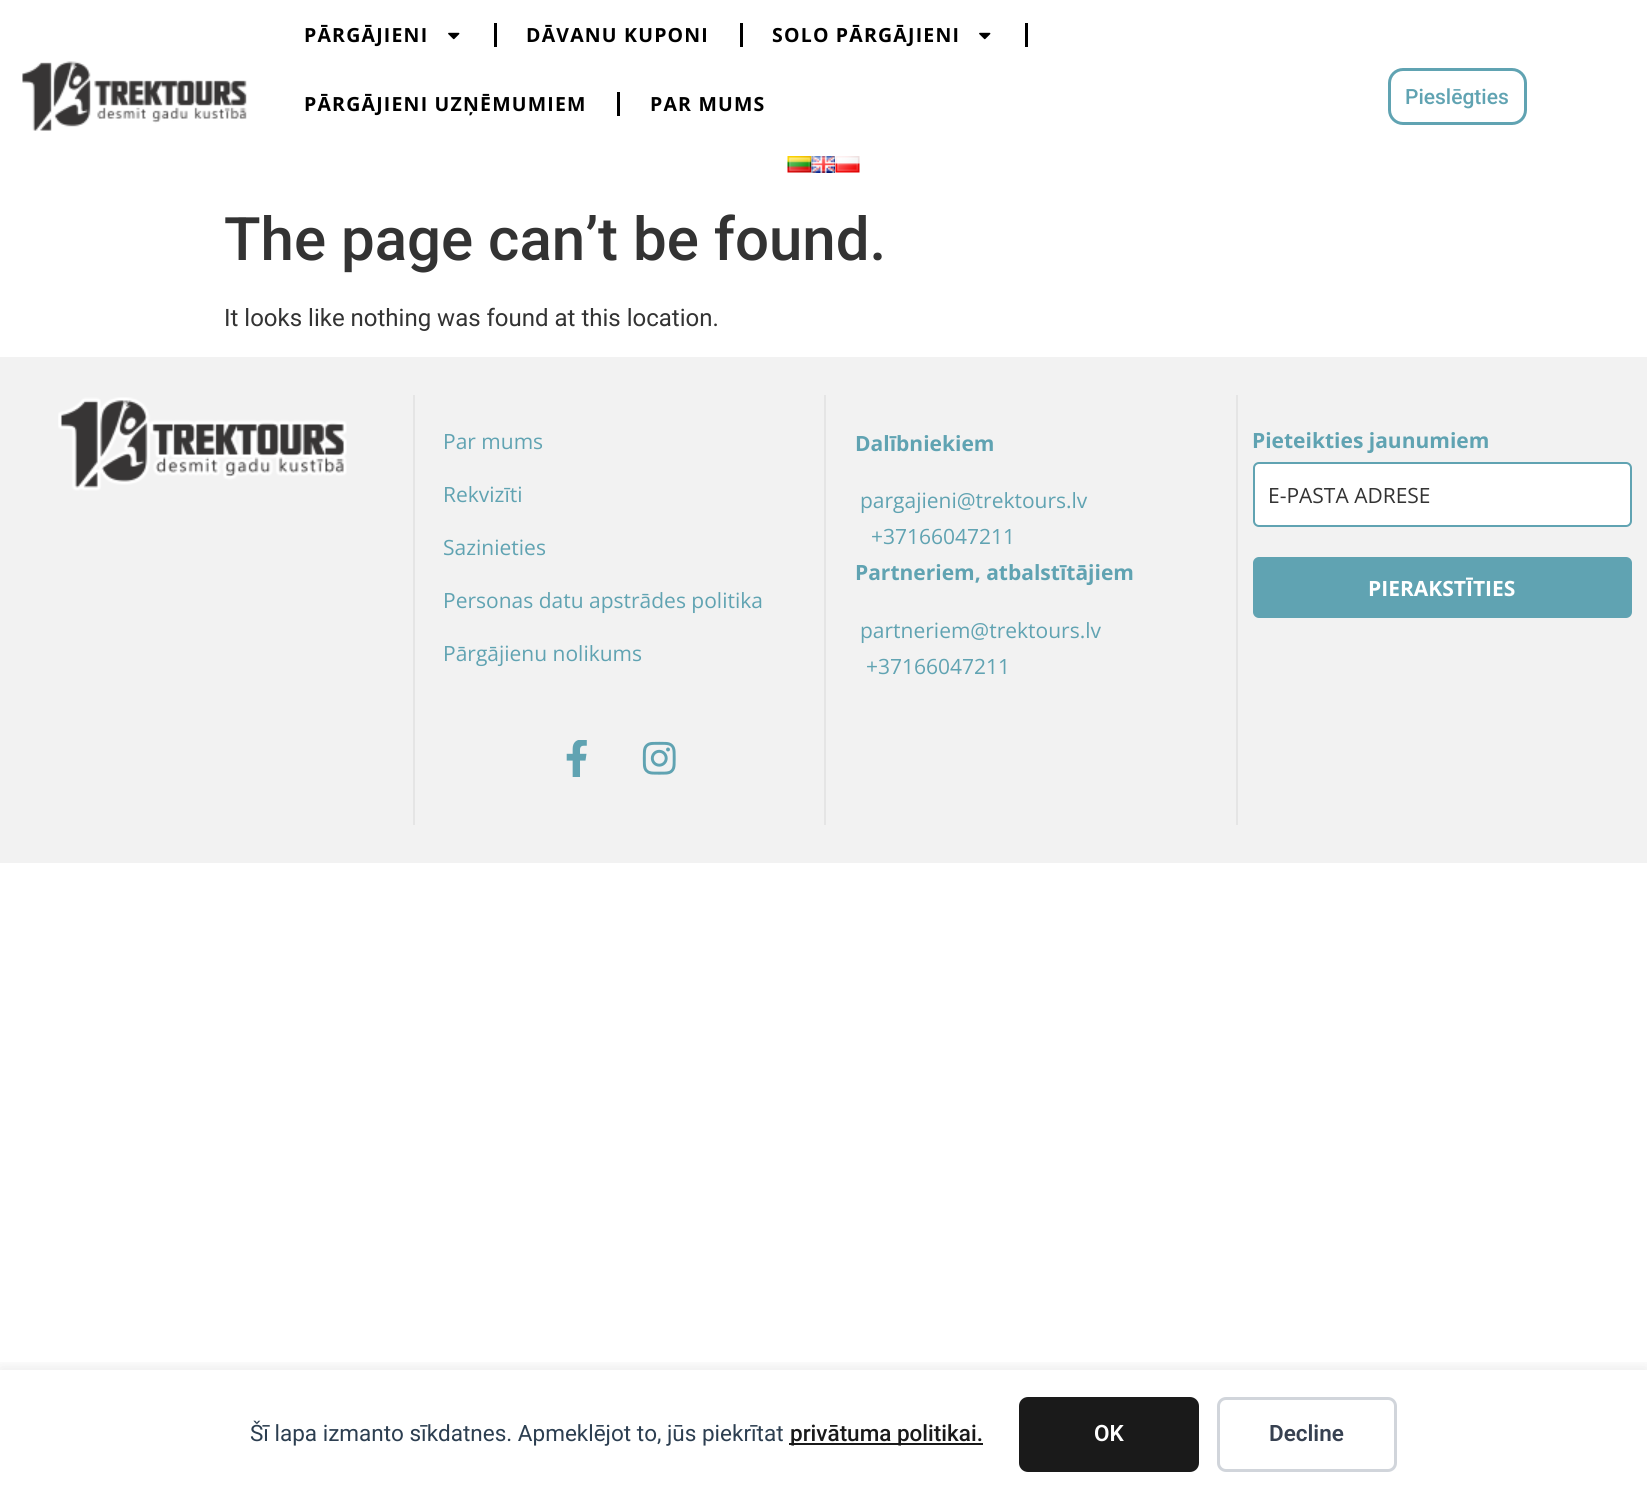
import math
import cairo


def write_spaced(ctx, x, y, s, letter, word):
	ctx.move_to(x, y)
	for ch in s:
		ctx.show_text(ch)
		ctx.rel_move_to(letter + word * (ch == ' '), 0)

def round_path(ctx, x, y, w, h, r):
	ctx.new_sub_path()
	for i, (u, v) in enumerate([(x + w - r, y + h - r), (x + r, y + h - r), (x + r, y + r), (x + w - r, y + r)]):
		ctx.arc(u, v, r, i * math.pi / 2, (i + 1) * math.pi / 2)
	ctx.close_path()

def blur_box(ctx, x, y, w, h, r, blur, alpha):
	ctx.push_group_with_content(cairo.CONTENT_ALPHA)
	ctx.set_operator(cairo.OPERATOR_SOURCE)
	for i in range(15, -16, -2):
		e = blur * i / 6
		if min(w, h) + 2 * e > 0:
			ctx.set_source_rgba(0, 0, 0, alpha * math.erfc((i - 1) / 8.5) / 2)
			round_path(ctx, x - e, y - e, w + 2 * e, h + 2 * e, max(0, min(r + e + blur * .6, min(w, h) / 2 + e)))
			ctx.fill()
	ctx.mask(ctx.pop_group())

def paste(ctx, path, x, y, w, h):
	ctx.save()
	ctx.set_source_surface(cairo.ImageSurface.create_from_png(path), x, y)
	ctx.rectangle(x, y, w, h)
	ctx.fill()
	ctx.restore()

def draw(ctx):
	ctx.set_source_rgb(1, 1, 1)
	ctx.paint()
	paste(ctx, 'media/1.png', 22, 61, 225, 70)
	ctx.select_font_face('Open Sans', cairo.FONT_SLANT_NORMAL, cairo.FONT_WEIGHT_BOLD)
	ctx.set_font_size(19.5)
	ctx.set_source_rgb(0, 0, 0)
	write_spaced(ctx, 304, 42, 'PĀRGĀJIENI', 1.2, 0)
	paste(ctx, 'media/2.png', 448, 32, 12, 8)
	ctx.rectangle(494, 23, 3, 24)
	ctx.fill()
	write_spaced(ctx, 526, 42, 'DĀVANU KUPONI', 1.2, 0)
	ctx.rectangle(740, 23, 3, 24)
	ctx.fill()
	write_spaced(ctx, 772, 42, 'SOLO PĀRGĀJIENI', 1.2, 0)
	paste(ctx, 'media/2.png', 979, 32, 12, 8)
	ctx.rectangle(1025, 23, 3, 24)
	ctx.fill()
	write_spaced(ctx, 304, 111, 'PĀRGĀJIENI UZŅĒMUMIEM', 1.2, 0)
	ctx.rectangle(617, 92, 3, 24)
	ctx.fill()
	write_spaced(ctx, 650, 111, 'PAR MUMS', 1.2, 0)
	paste(ctx, 'media/3.png', 787, 156, 25, 17)
	paste(ctx, 'media/4.png', 811, 156, 24, 17)
	paste(ctx, 'media/5.png', 835, 156, 25, 17)
	round_path(ctx, 1389.5, 69.5, 136, 54, 13.5)
	ctx.set_source_rgb(0.376, 0.639, 0.698)
	ctx.set_line_width(3)
	ctx.stroke()
	ctx.select_font_face('Roboto Medium')
	ctx.set_font_size(21)
	ctx.move_to(1405, 104)
	ctx.show_text('Pieslēgties')
	ctx.set_font_size(60)
	ctx.set_source_rgb(0.2, 0.2, 0.2)
	ctx.move_to(224, 260)
	ctx.show_text('The page can’t be found.')
	ctx.select_font_face('Roboto')
	ctx.set_font_size(24)
	ctx.move_to(224, 326)
	ctx.show_text('It looks like nothing was found at this location.')
	ctx.set_source_rgb(0.949, 0.949, 0.949)
	ctx.rectangle(0, 357, 1647, 506)
	ctx.fill()
	paste(ctx, 'media/6.png', 58, 397, 289, 94)
	ctx.set_source_rgb(0.898, 0.898, 0.898)
	ctx.rectangle(413, 395, 2, 430)
	ctx.fill()
	ctx.select_font_face('Open Sans')
	ctx.set_font_size(21)
	ctx.set_source_rgb(0.376, 0.639, 0.698)
	for x, y, s in [
		(443, 449, 'Par mums'),
		(443, 502, 'Rekvizīti'),
		(443, 555, 'Sazinieties'),
		(443, 608, 'Personas datu apstrādes politika'),
		(443, 661, 'Pārgājienu nolikums'),
	]:
		ctx.move_to(x, y)
		ctx.show_text(s)
	paste(ctx, 'media/7.png', 566, 740, 21, 37)
	paste(ctx, 'media/8.png', 642, 741, 34, 34)
	ctx.set_source_rgb(0.898, 0.898, 0.898)
	ctx.rectangle(824, 395, 2, 430)
	ctx.fill()
	ctx.select_font_face('Open Sans', cairo.FONT_SLANT_NORMAL, cairo.FONT_WEIGHT_BOLD)
	ctx.set_source_rgb(0.376, 0.639, 0.698)
	ctx.move_to(855, 451)
	ctx.show_text('Dalībniekiem')
	ctx.select_font_face('Open Sans')
	ctx.move_to(860, 508)
	ctx.show_text('pargajieni@trektours.lv')
	ctx.move_to(871, 544)
	ctx.show_text('+37166047211')
	ctx.select_font_face('Open Sans', cairo.FONT_SLANT_NORMAL, cairo.FONT_WEIGHT_BOLD)
	ctx.move_to(855, 580)
	ctx.show_text('Partneriem, atbalstītājiem')
	ctx.select_font_face('Open Sans')
	ctx.move_to(860, 638)
	ctx.show_text('partneriem@trektours.lv')
	ctx.move_to(866, 674)
	ctx.show_text('+37166047211')
	ctx.set_source_rgb(0.898, 0.898, 0.898)
	ctx.rectangle(1236, 395, 2, 430)
	ctx.fill()
	ctx.select_font_face('Open Sans', cairo.FONT_SLANT_NORMAL, cairo.FONT_WEIGHT_BOLD)
	ctx.set_source_rgb(0.376, 0.639, 0.698)
	ctx.move_to(1252, 448)
	ctx.show_text('Pieteikties jaunumiem')
	ctx.set_source_rgb(1, 1, 1)
	round_path(ctx, 1254, 463, 377, 63, 5)
	ctx.fill_preserve()
	ctx.set_source_rgb(0.376, 0.639, 0.698)
	ctx.set_line_width(2)
	ctx.stroke()
	ctx.select_font_face('Open Sans')
	ctx.set_source_rgb(0.2, 0.2, 0.2)
	ctx.move_to(1268, 503)
	ctx.show_text('E-PASTA ADRESE')
	ctx.set_source_rgb(0.376, 0.639, 0.698)
	round_path(ctx, 1253, 557, 379, 61, 6)
	ctx.fill()
	ctx.select_font_face('Open Sans', cairo.FONT_SLANT_NORMAL, cairo.FONT_WEIGHT_BOLD)
	ctx.set_source_rgb(1, 1, 1)
	ctx.move_to(1368, 596)
	ctx.show_text('PIERAKSTĪTIES')
	ctx.save()
	ctx.rectangle(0, 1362, 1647, 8)
	ctx.clip()
	ctx.set_source_rgb(0, 0, 0)
	blur_box(ctx, 0, 1367, 1647, 129, 0, 7.5, 0.08)
	ctx.restore()
	ctx.select_font_face('Roboto')
	ctx.set_font_size(22.5)
	ctx.set_source_rgb(0.173, 0.243, 0.314)
	ctx.move_to(250, 1441)
	ctx.show_text('Šī lapa izmanto sīkdatnes. Apmeklējot to, jūs piekrītat')
	ctx.set_source_rgb(0.102, 0.102, 0.102)
	ctx.rectangle(789, 1443, 194, 2)
	ctx.fill()
	ctx.select_font_face('Roboto Medium')
	ctx.move_to(790, 1441)
	ctx.show_text('privātuma politikai.')
	round_path(ctx, 1019, 1397, 180, 75, 9)
	ctx.fill()
	ctx.select_font_face('Roboto SemiBold')
	ctx.set_source_rgb(1, 1, 1)
	ctx.move_to(1094, 1441)
	ctx.show_text('OK')
	round_path(ctx, 1218.5, 1398.5, 177, 72, 7.5)
	ctx.set_source_rgb(0.82, 0.835, 0.859)
	ctx.set_line_width(3)
	ctx.stroke()
	ctx.set_source_rgb(0.216, 0.255, 0.318)
	ctx.move_to(1269, 1441)
	ctx.show_text('Decline')


surface = cairo.ImageSurface(cairo.FORMAT_RGB24, 1647, 1498)
ctx = cairo.Context(surface)
options = cairo.FontOptions()
options.set_hint_metrics(cairo.HINT_METRICS_OFF)
options.set_hint_style(cairo.HINT_STYLE_NONE)
ctx.set_font_options(options)
ctx.set_miter_limit(4)
draw(ctx)
surface.write_to_png('image.png')
